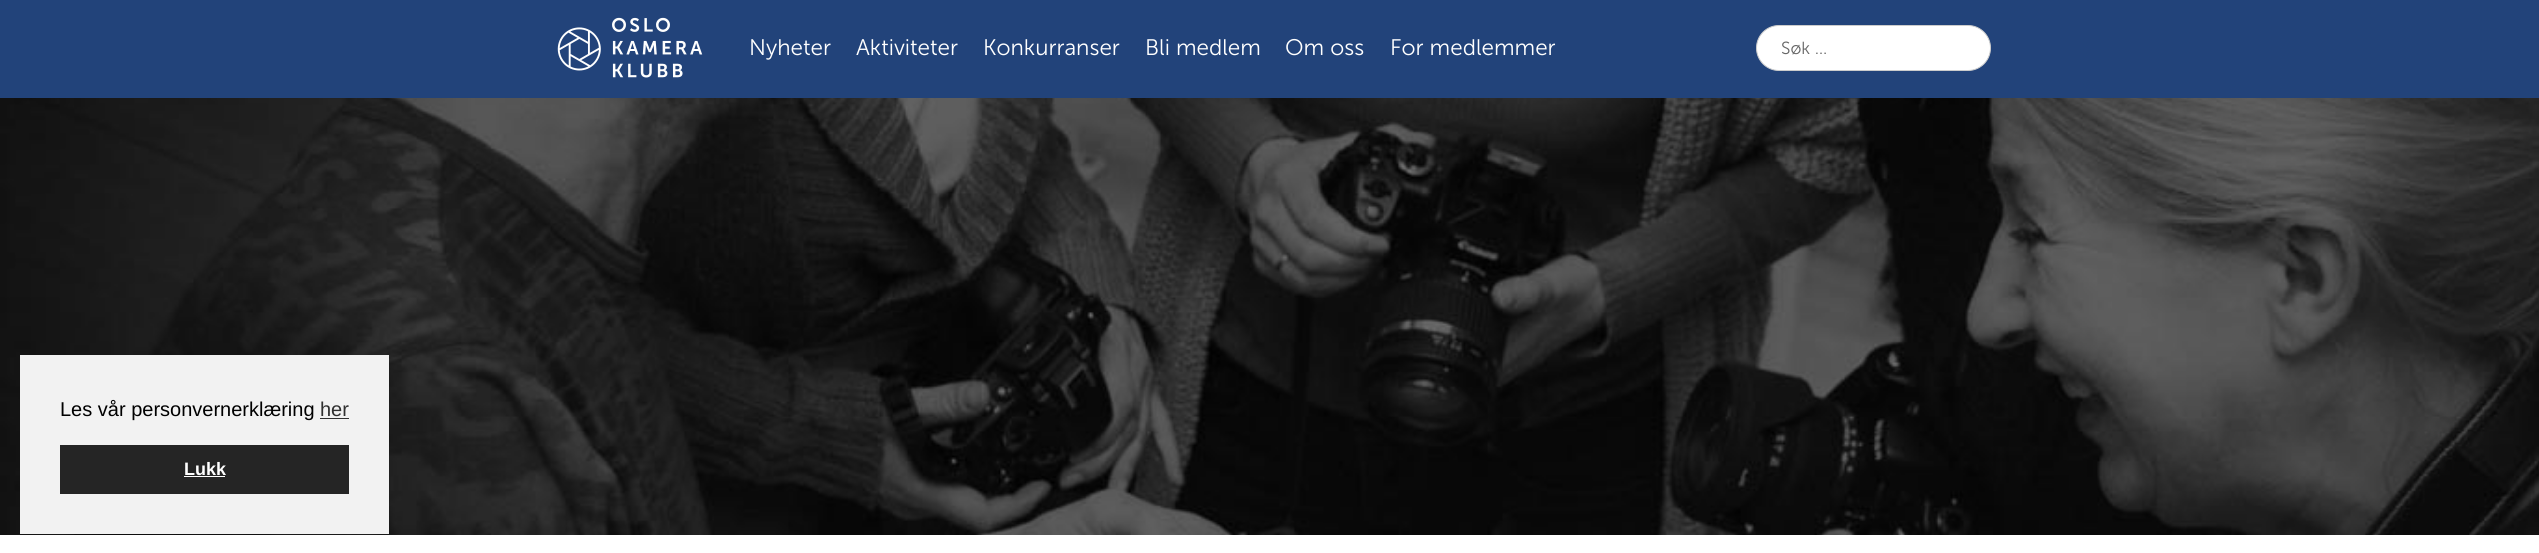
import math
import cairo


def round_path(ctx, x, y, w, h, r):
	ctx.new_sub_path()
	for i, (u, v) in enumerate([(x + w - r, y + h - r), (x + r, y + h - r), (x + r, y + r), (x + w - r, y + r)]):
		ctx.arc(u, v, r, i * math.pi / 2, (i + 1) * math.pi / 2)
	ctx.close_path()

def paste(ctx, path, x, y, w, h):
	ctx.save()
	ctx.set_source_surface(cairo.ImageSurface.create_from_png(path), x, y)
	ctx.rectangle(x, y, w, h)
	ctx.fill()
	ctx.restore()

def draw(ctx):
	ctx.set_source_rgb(1, 1, 1)
	ctx.paint()
	ctx.set_source_rgb(0.133, 0.263, 0.478)
	ctx.rectangle(0, 0, 2539, 98)
	ctx.fill()
	paste(ctx, 'media/1.png', 557, 17, 146, 61)
	ctx.select_font_face('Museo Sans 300 Light')
	ctx.set_font_size(22.5)
	ctx.set_source_rgb(1, 1, 1)
	for x, y, s in [
		(749, 55, 'Nyheter'),
		(856, 55, 'Aktiviteter'),
		(983, 55, 'Konkurranser'),
		(1145, 55, 'Bli medlem'),
		(1285, 55, 'Om oss'),
		(1390, 55, 'For medlemmer'),
	]:
		ctx.move_to(x, y)
		ctx.show_text(s)
	round_path(ctx, 1756.5, 25.5, 234, 45, 22.5)
	ctx.fill_preserve()
	ctx.set_source_rgb(0.8, 0.8, 0.8)
	ctx.set_line_width(1)
	ctx.stroke()
	ctx.set_font_size(17.5)
	ctx.set_source_rgb(0.4, 0.4, 0.4)
	ctx.move_to(1781, 54)
	ctx.show_text('Søk …')
	paste(ctx, 'media/2.png', 0, 98, 2539, 437)
	ctx.set_source_rgb(0.949, 0.949, 0.949)
	ctx.rectangle(20, 355, 369, 179)
	ctx.fill()
	ctx.select_font_face('Liberation Sans')
	ctx.set_font_size(20)
	ctx.set_source_rgb(0, 0, 0)
	ctx.move_to(60, 416)
	ctx.show_text('Les vår personvernerklæring')
	ctx.set_source_rgb(0.188, 0.188, 0.188)
	ctx.move_to(320, 416)
	ctx.show_text('her')
	ctx.rectangle(320, 418, 29, 1)
	ctx.fill()
	ctx.set_source_rgb(0.145, 0.145, 0.145)
	ctx.rectangle(60, 445, 289, 49)
	ctx.fill()
	ctx.select_font_face('Liberation Sans', cairo.FONT_SLANT_NORMAL, cairo.FONT_WEIGHT_BOLD)
	ctx.set_font_size(18)
	ctx.set_source_rgb(1, 1, 1)
	ctx.move_to(184, 475)
	ctx.show_text('Lukk')
	ctx.rectangle(184, 476, 41, 1)
	ctx.fill()


surface = cairo.ImageSurface(cairo.FORMAT_RGB24, 2539, 553)
ctx = cairo.Context(surface)
options = cairo.FontOptions()
options.set_hint_metrics(cairo.HINT_METRICS_OFF)
options.set_hint_style(cairo.HINT_STYLE_NONE)
ctx.set_font_options(options)
ctx.set_miter_limit(4)
draw(ctx)
surface.write_to_png('image.png')
